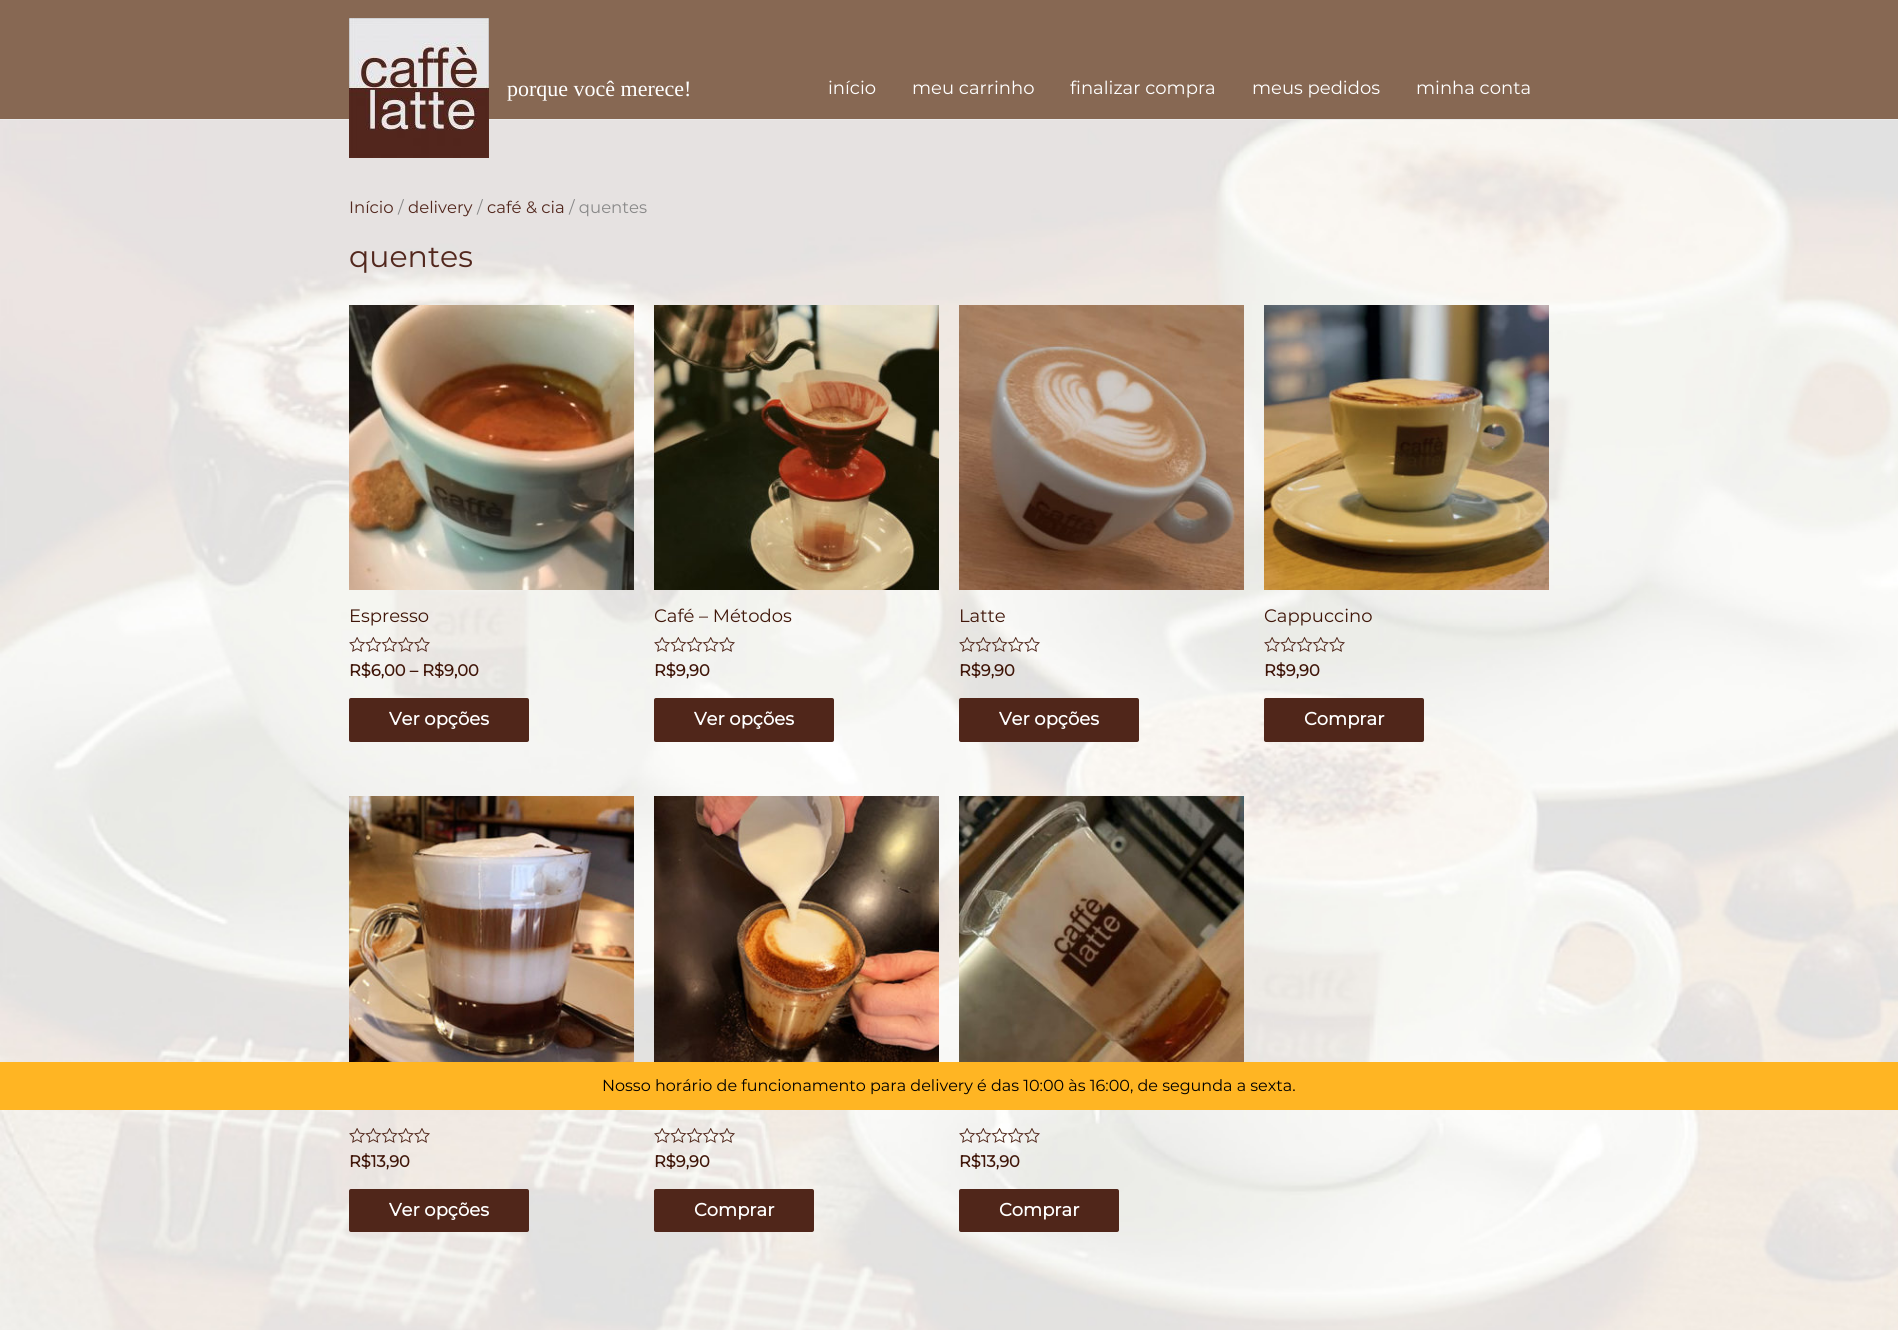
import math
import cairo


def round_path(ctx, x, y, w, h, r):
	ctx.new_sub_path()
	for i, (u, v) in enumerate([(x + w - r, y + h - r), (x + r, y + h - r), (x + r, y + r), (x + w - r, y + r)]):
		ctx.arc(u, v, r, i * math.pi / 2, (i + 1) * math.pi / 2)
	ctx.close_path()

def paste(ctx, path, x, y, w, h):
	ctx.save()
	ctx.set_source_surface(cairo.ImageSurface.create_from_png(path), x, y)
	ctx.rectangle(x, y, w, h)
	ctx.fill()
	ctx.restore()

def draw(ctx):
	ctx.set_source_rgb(1, 1, 1)
	ctx.paint()
	paste(ctx, 'media/1.png', 0, 120, 1898, 1210)
	ctx.set_source_rgb(0.529, 0.408, 0.325)
	ctx.rectangle(0, 0, 1898, 119)
	ctx.fill()
	ctx.set_source_rgb(0.918, 0.918, 0.918)
	ctx.rectangle(0, 119, 1898, 1)
	ctx.fill()
	paste(ctx, 'media/2.png', 349, 18, 140, 140)
	ctx.select_font_face('Liberation Serif')
	ctx.set_font_size(22)
	ctx.set_source_rgb(1, 1, 1)
	ctx.move_to(507, 96)
	ctx.show_text('porque você merece!')
	ctx.select_font_face('Montserrat Thin')
	ctx.set_font_size(18)
	for x, y, s in [
		(828, 94, 'início'),
		(912, 94, 'meu carrinho'),
		(1070, 94, 'finalizar compra'),
		(1252, 94, 'meus pedidos'),
		(1416, 94, 'minha conta'),
	]:
		ctx.move_to(x, y)
		ctx.show_text(s)
	ctx.set_font_size(16.5)
	ctx.set_source_rgb(0.322, 0.153, 0.114)
	ctx.move_to(349, 213)
	ctx.show_text('Início')
	ctx.set_source_rgb(0.533, 0.533, 0.533)
	ctx.move_to(398, 213)
	ctx.show_text('/')
	ctx.set_source_rgb(0.322, 0.153, 0.114)
	ctx.move_to(408, 213)
	ctx.show_text('delivery')
	ctx.set_source_rgb(0.533, 0.533, 0.533)
	ctx.move_to(477, 213)
	ctx.show_text('/')
	ctx.set_source_rgb(0.322, 0.153, 0.114)
	ctx.move_to(487, 213)
	ctx.show_text('café & cia')
	ctx.set_source_rgb(0.533, 0.533, 0.533)
	ctx.move_to(569, 213)
	ctx.show_text('/ quentes')
	ctx.set_font_size(30)
	ctx.set_source_rgb(0.322, 0.153, 0.114)
	ctx.move_to(349, 267)
	ctx.show_text('quentes')
	paste(ctx, 'media/3.png', 349, 305, 285, 285)
	ctx.set_font_size(18)
	ctx.set_source_rgb(0.251, 0.086, 0.039)
	ctx.move_to(349, 622)
	ctx.show_text('Espresso')
	paste(ctx, 'media/4.png', 349, 637, 81, 15)
	ctx.select_font_face('Montserrat', cairo.FONT_SLANT_NORMAL, cairo.FONT_WEIGHT_BOLD)
	ctx.set_font_size(16.25)
	ctx.move_to(349, 676)
	ctx.show_text('R$6,00 – R$9,00')
	ctx.set_source_rgb(0.314, 0.149, 0.102)
	round_path(ctx, 349, 698, 180, 44, 2)
	ctx.fill()
	ctx.set_font_size(18)
	ctx.set_source_rgb(1, 1, 1)
	ctx.move_to(389, 725)
	ctx.show_text('Ver opções')
	paste(ctx, 'media/5.png', 654, 305, 285, 285)
	ctx.select_font_face('Montserrat Thin')
	ctx.set_source_rgb(0.251, 0.086, 0.039)
	ctx.move_to(654, 622)
	ctx.show_text('Café – Métodos')
	paste(ctx, 'media/6.png', 654, 637, 81, 15)
	ctx.select_font_face('Montserrat', cairo.FONT_SLANT_NORMAL, cairo.FONT_WEIGHT_BOLD)
	ctx.set_font_size(16.25)
	ctx.move_to(654, 676)
	ctx.show_text('R$9,90')
	ctx.set_source_rgb(0.314, 0.149, 0.102)
	round_path(ctx, 654, 698, 180, 44, 2)
	ctx.fill()
	ctx.set_font_size(18)
	ctx.set_source_rgb(1, 1, 1)
	ctx.move_to(694, 725)
	ctx.show_text('Ver opções')
	paste(ctx, 'media/7.png', 959, 305, 285, 285)
	ctx.select_font_face('Montserrat Thin')
	ctx.set_source_rgb(0.251, 0.086, 0.039)
	ctx.move_to(959, 622)
	ctx.show_text('Latte')
	paste(ctx, 'media/8.png', 959, 637, 81, 15)
	ctx.select_font_face('Montserrat', cairo.FONT_SLANT_NORMAL, cairo.FONT_WEIGHT_BOLD)
	ctx.set_font_size(16.25)
	ctx.move_to(959, 676)
	ctx.show_text('R$9,90')
	ctx.set_source_rgb(0.314, 0.149, 0.102)
	round_path(ctx, 959, 698, 180, 44, 2)
	ctx.fill()
	ctx.set_font_size(18)
	ctx.set_source_rgb(1, 1, 1)
	ctx.move_to(999, 725)
	ctx.show_text('Ver opções')
	paste(ctx, 'media/9.png', 1264, 305, 285, 285)
	ctx.select_font_face('Montserrat Thin')
	ctx.set_source_rgb(0.251, 0.086, 0.039)
	ctx.move_to(1264, 622)
	ctx.show_text('Cappuccino')
	paste(ctx, 'media/10.png', 1264, 637, 81, 15)
	ctx.select_font_face('Montserrat', cairo.FONT_SLANT_NORMAL, cairo.FONT_WEIGHT_BOLD)
	ctx.set_font_size(16.25)
	ctx.move_to(1264, 676)
	ctx.show_text('R$9,90')
	ctx.set_source_rgb(0.314, 0.149, 0.102)
	round_path(ctx, 1264, 698, 160, 44, 2)
	ctx.fill()
	ctx.set_font_size(18)
	ctx.set_source_rgb(1, 1, 1)
	ctx.move_to(1304, 725)
	ctx.show_text('Comprar')
	paste(ctx, 'media/11.png', 349, 796, 285, 266)
	paste(ctx, 'media/12.png', 349, 1128, 81, 15)
	ctx.set_font_size(16.25)
	ctx.set_source_rgb(0.251, 0.086, 0.039)
	ctx.move_to(349, 1167)
	ctx.show_text('R$13,90')
	ctx.set_source_rgb(0.314, 0.149, 0.102)
	round_path(ctx, 349, 1189, 180, 43, 2)
	ctx.fill()
	ctx.set_font_size(18)
	ctx.set_source_rgb(1, 1, 1)
	ctx.move_to(389, 1216)
	ctx.show_text('Ver opções')
	paste(ctx, 'media/13.png', 654, 796, 285, 266)
	paste(ctx, 'media/14.png', 654, 1128, 81, 15)
	ctx.set_font_size(16.25)
	ctx.set_source_rgb(0.251, 0.086, 0.039)
	ctx.move_to(654, 1167)
	ctx.show_text('R$9,90')
	ctx.set_source_rgb(0.314, 0.149, 0.102)
	round_path(ctx, 654, 1189, 160, 43, 2)
	ctx.fill()
	ctx.set_font_size(18)
	ctx.set_source_rgb(1, 1, 1)
	ctx.move_to(694, 1216)
	ctx.show_text('Comprar')
	paste(ctx, 'media/15.png', 959, 796, 285, 266)
	paste(ctx, 'media/16.png', 959, 1128, 81, 15)
	ctx.set_font_size(16.25)
	ctx.set_source_rgb(0.251, 0.086, 0.039)
	ctx.move_to(959, 1167)
	ctx.show_text('R$13,90')
	ctx.set_source_rgb(0.314, 0.149, 0.102)
	round_path(ctx, 959, 1189, 160, 43, 2)
	ctx.fill()
	ctx.set_font_size(18)
	ctx.set_source_rgb(1, 1, 1)
	ctx.move_to(999, 1216)
	ctx.show_text('Comprar')
	ctx.set_source_rgb(1, 0.71, 0.137)
	ctx.rectangle(0, 1062, 1898, 48)
	ctx.fill()
	ctx.select_font_face('Montserrat Thin')
	ctx.set_font_size(16)
	ctx.set_source_rgb(0, 0, 0)
	ctx.move_to(602, 1091)
	ctx.show_text('Nosso horário de funcionamento para delivery é das 10:00 às 16:00, de segunda a sexta.')


surface = cairo.ImageSurface(cairo.FORMAT_RGB24, 1898, 1330)
ctx = cairo.Context(surface)
options = cairo.FontOptions()
options.set_hint_metrics(cairo.HINT_METRICS_OFF)
options.set_hint_style(cairo.HINT_STYLE_NONE)
ctx.set_font_options(options)
ctx.set_miter_limit(4)
draw(ctx)
surface.write_to_png('image.png')
